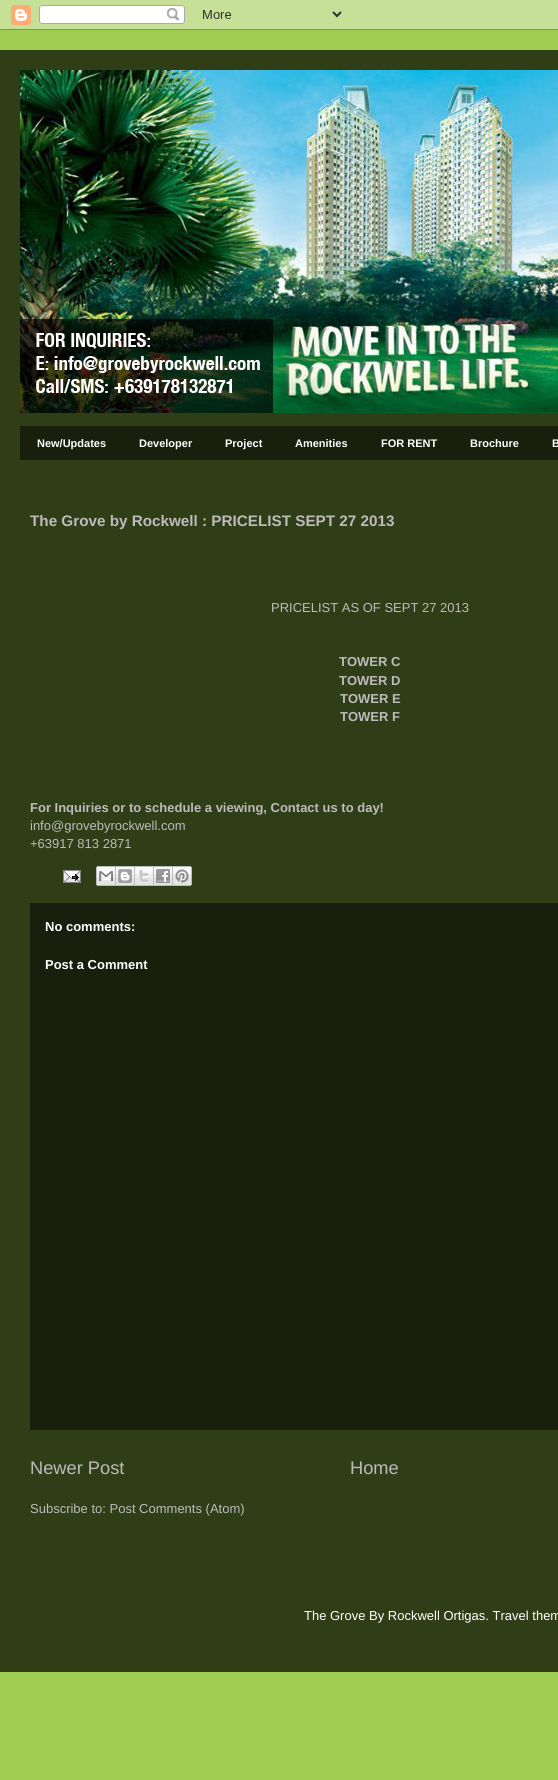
import math
import cairo


def paste(ctx, path, x, y, w, h):
	ctx.save()
	ctx.set_source_surface(cairo.ImageSurface.create_from_png(path), x, y)
	ctx.rectangle(x, y, w, h)
	ctx.fill()
	ctx.restore()

def draw(ctx):
	ctx.set_source_rgb(0.627, 0.804, 0.322)
	ctx.paint()
	paste(ctx, 'media/1.png', 0, 0, 558, 30)
	ctx.set_source_rgb(0.188, 0.243, 0.094)
	ctx.rectangle(0, 50, 558, 1622)
	ctx.fill()
	paste(ctx, 'media/2.png', 20, 70, 538, 343)
	ctx.set_source_rgb(0.094, 0.122, 0.047)
	ctx.rectangle(20, 426, 538, 34)
	ctx.fill()
	ctx.select_font_face('Liberation Sans', cairo.FONT_SLANT_NORMAL, cairo.FONT_WEIGHT_BOLD)
	ctx.set_font_size(11)
	ctx.set_source_rgb(1, 1, 1)
	for x, y, s in [
		(37, 447, 'New/Updates'),
		(139, 447, 'Developer'),
		(225, 447, 'Project'),
		(295, 447, 'Amenities'),
		(381, 447, 'FOR RENT'),
		(470, 447, 'Brochure'),
		(552, 447, 'B'),
	]:
		ctx.move_to(x, y)
		ctx.show_text(s)
	ctx.set_font_size(15.25)
	ctx.set_source_rgb(0.733, 0.733, 0.733)
	ctx.move_to(30, 526)
	ctx.show_text('The Grove by Rockwell : PRICELIST SEPT 27 2013')
	ctx.select_font_face('Liberation Sans')
	ctx.set_font_size(13)
	ctx.move_to(271, 612)
	ctx.show_text('PRICELIST AS OF SEPT 27 2013')
	ctx.select_font_face('Liberation Sans', cairo.FONT_SLANT_NORMAL, cairo.FONT_WEIGHT_BOLD)
	for x, y, s in [
		(339, 666, 'TOWER C'),
		(339, 685, 'TOWER D'),
		(340, 703, 'TOWER E'),
		(340, 721, 'TOWER F'),
		(30, 812, 'For Inquiries or to schedule a viewing, Contact us to day!'),
	]:
		ctx.move_to(x, y)
		ctx.show_text(s)
	ctx.select_font_face('Liberation Sans')
	ctx.move_to(30, 830)
	ctx.show_text('info@grovebyrockwell.com')
	ctx.move_to(30, 848)
	ctx.show_text('+63917 813 2871')
	paste(ctx, 'media/3.png', 63, 870, 18, 13)
	paste(ctx, 'media/4.png', 96, 866, 20, 20)
	paste(ctx, 'media/5.png', 116, 866, 19, 20)
	paste(ctx, 'media/6.png', 135, 866, 19, 20)
	paste(ctx, 'media/7.png', 154, 866, 19, 20)
	paste(ctx, 'media/8.png', 173, 866, 19, 20)
	ctx.set_source_rgb(0.094, 0.122, 0.047)
	ctx.rectangle(30, 903, 528, 527)
	ctx.fill()
	ctx.select_font_face('Liberation Sans', cairo.FONT_SLANT_NORMAL, cairo.FONT_WEIGHT_BOLD)
	ctx.set_source_rgb(1, 1, 1)
	ctx.move_to(45, 931)
	ctx.show_text('No comments:')
	ctx.move_to(45, 969)
	ctx.show_text('Post a Comment')
	ctx.select_font_face('Liberation Sans')
	ctx.set_font_size(18.25)
	ctx.set_source_rgb(0.733, 0.733, 0.733)
	ctx.move_to(30, 1474)
	ctx.show_text('Newer Post')
	ctx.move_to(350, 1474)
	ctx.show_text('Home')
	ctx.set_font_size(13)
	ctx.move_to(30, 1513)
	ctx.show_text('Subscribe to: Post Comments (Atom)')
	ctx.set_source_rgb(1, 1, 1)
	ctx.move_to(304, 1620)
	ctx.show_text('The Grove By Rockwell Ortigas. Travel them')


surface = cairo.ImageSurface(cairo.FORMAT_RGB24, 558, 1780)
ctx = cairo.Context(surface)
options = cairo.FontOptions()
options.set_hint_metrics(cairo.HINT_METRICS_OFF)
options.set_hint_style(cairo.HINT_STYLE_NONE)
ctx.set_font_options(options)
ctx.set_miter_limit(4)
draw(ctx)
surface.write_to_png('image.png')
